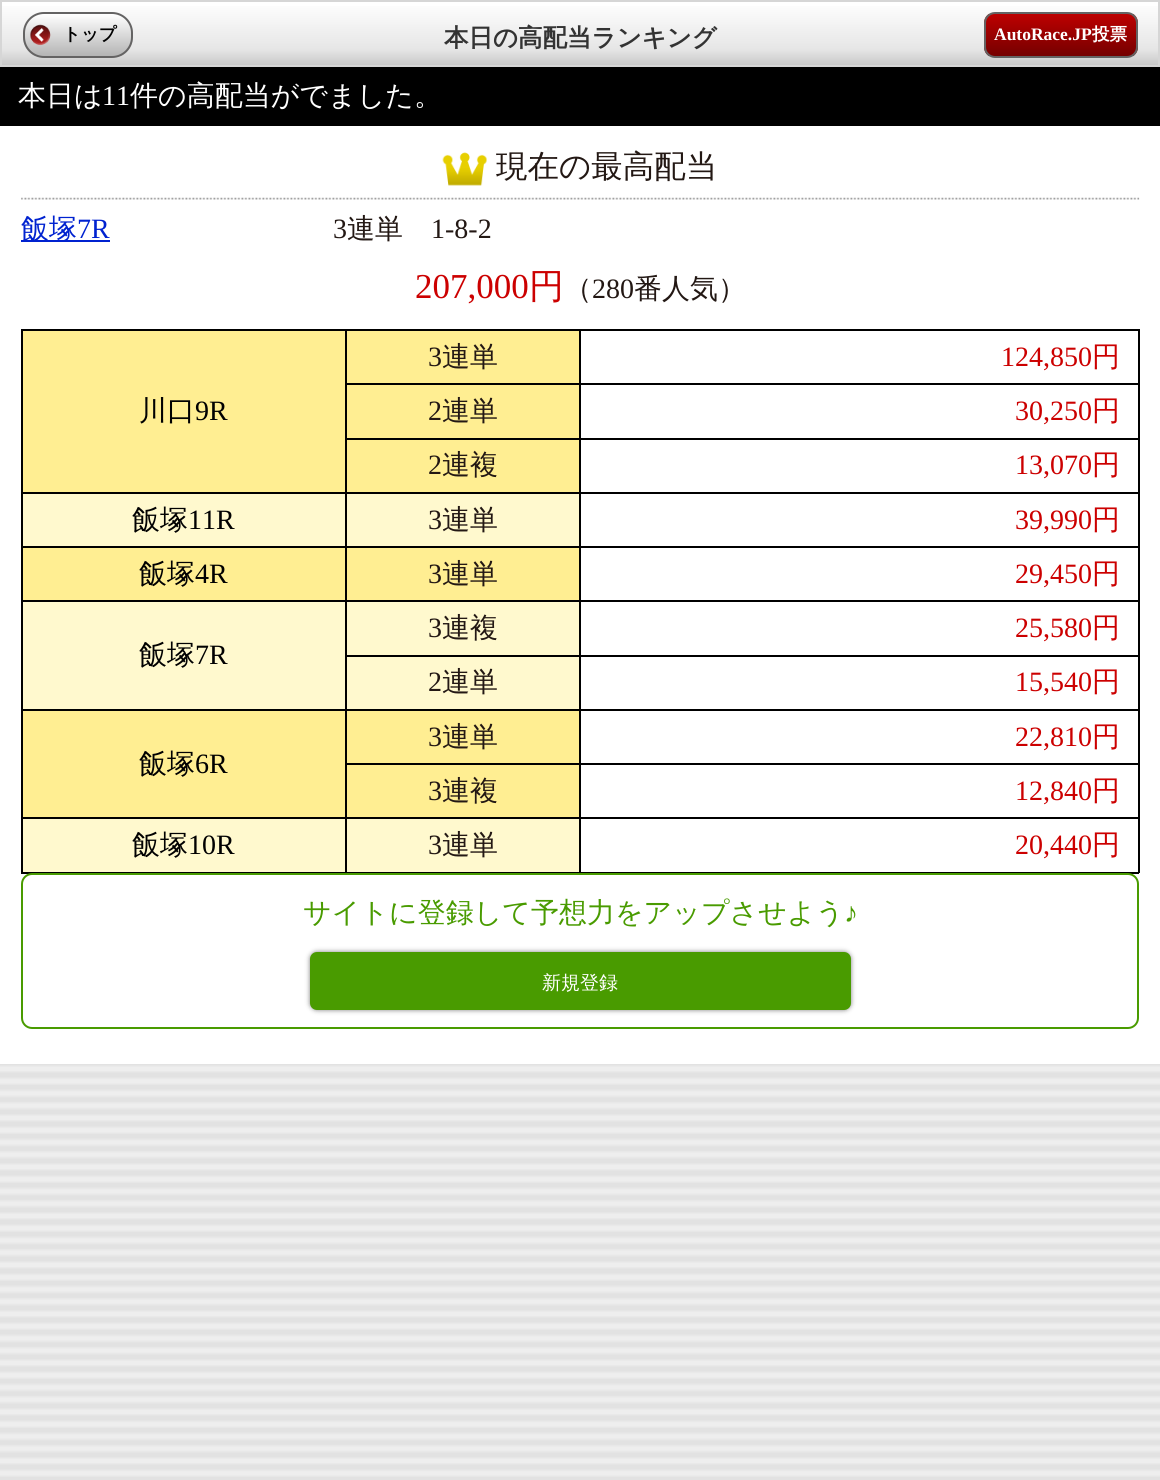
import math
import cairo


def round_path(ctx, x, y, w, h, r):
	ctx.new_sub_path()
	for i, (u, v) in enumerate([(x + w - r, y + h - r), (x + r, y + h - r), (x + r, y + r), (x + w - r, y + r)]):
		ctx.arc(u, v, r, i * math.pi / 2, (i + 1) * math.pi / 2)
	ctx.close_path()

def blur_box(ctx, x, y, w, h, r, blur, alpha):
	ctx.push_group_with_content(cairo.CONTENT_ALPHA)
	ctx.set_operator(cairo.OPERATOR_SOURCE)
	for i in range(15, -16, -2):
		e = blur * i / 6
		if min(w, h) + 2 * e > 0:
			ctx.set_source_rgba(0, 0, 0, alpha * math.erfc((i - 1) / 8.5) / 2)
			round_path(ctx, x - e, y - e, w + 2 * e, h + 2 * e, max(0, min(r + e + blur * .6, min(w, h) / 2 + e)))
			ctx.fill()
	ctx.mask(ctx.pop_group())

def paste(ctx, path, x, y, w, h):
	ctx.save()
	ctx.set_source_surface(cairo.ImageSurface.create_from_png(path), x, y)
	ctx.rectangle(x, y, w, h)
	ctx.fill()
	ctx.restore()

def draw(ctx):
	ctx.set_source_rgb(1, 1, 1)
	ctx.paint()
	paste(ctx, 'media/1.png', 0, 1064, 1160, 416)
	gradient = cairo.LinearGradient(580, 1.7, 580, 65)
	gradient.add_color_stop_rgba(0, 1, 1, 1, 1)
	gradient.add_color_stop_rgba(0.75, 0.902, 0.902, 0.902, 1)
	gradient.add_color_stop_rgba(1, 0.788, 0.788, 0.788, 1)
	ctx.set_source(gradient)
	ctx.rectangle(2, 6, 1156, 59)
	ctx.fill()
	ctx.rectangle(1, 1, 1158, 65)
	ctx.set_source_rgb(0.839, 0.839, 0.839)
	ctx.stroke()
	ctx.save()
	round_path(ctx, 23, 12, 110, 46, 21)
	ctx.clip()
	gradient = cairo.LinearGradient(78, 14, 78, 56)
	gradient.add_color_stop_rgba(0, 1, 1, 1, 1)
	gradient.add_color_stop_rgba(1, 0.706, 0.706, 0.706, 1)
	ctx.set_source(gradient)
	ctx.rectangle(23, 14, 110, 42)
	ctx.fill()
	ctx.restore()
	round_path(ctx, 24, 13, 108, 44, 20)
	ctx.set_source_rgb(0.392, 0.388, 0.388)
	ctx.stroke()
	paste(ctx, 'media/2.png', 30, 24, 21, 22)
	ctx.select_font_face('WenQuanYi Zen Hei', cairo.FONT_SLANT_NORMAL, cairo.FONT_WEIGHT_BOLD)
	ctx.set_font_size(17.5)
	ctx.set_source_rgb(0.004, 0.004, 0.004)
	ctx.move_to(63, 40)
	ctx.show_text('トップ')
	ctx.set_font_size(24.5)
	ctx.set_source_rgb(0.2, 0.2, 0.2)
	ctx.move_to(444, 46)
	ctx.show_text('本日の高配当ランキング')
	ctx.save()
	round_path(ctx, 984, 12, 154, 46, 11)
	ctx.clip()
	gradient = cairo.LinearGradient(1061, 14, 1061, 56)
	gradient.add_color_stop_rgba(0, 0.741, 0, 0, 1)
	gradient.add_color_stop_rgba(1, 0.459, 0, 0, 1)
	ctx.set_source(gradient)
	ctx.rectangle(984, 14, 154, 42)
	ctx.fill()
	ctx.restore()
	round_path(ctx, 985, 13, 152, 44, 10)
	ctx.set_source_rgb(0.392, 0.388, 0.388)
	ctx.stroke()
	ctx.select_font_face('Liberation Serif', cairo.FONT_SLANT_NORMAL, cairo.FONT_WEIGHT_BOLD)
	ctx.set_font_size(17.5)
	ctx.set_source_rgb(1, 1, 1)
	ctx.move_to(994, 40)
	ctx.show_text('AutoRace.JP')
	ctx.select_font_face('WenQuanYi Zen Hei', cairo.FONT_SLANT_NORMAL, cairo.FONT_WEIGHT_BOLD)
	ctx.move_to(1092, 40)
	ctx.show_text('投票')
	ctx.set_source_rgb(0, 0, 0)
	ctx.rectangle(0, 67, 1160, 59)
	ctx.fill()
	ctx.select_font_face('WenQuanYi Zen Hei Medium')
	ctx.set_font_size(28)
	ctx.set_source_rgb(1, 1, 1)
	ctx.move_to(18, 105)
	ctx.show_text('本日は')
	ctx.select_font_face('Liberation Serif')
	ctx.move_to(102, 105)
	ctx.show_text('11')
	ctx.select_font_face('WenQuanYi Zen Hei Medium')
	ctx.move_to(130, 105)
	ctx.show_text('件の高配当がでました。')
	paste(ctx, 'media/3.png', 21, 197, 1119, 3)
	paste(ctx, 'media/4.png', 442, 152, 45, 34)
	ctx.set_font_size(31.5)
	ctx.set_source_rgb(0.137, 0.094, 0.082)
	ctx.move_to(496, 177)
	ctx.show_text('現在の最高配当')
	ctx.set_source_rgb(0, 0.133, 0.816)
	ctx.rectangle(21, 240, 89, 2)
	ctx.fill()
	ctx.set_font_size(28)
	ctx.move_to(21, 238)
	ctx.show_text('飯塚')
	ctx.select_font_face('Liberation Serif')
	ctx.move_to(77, 238)
	ctx.show_text('7R')
	ctx.set_source_rgb(0.137, 0.094, 0.082)
	ctx.move_to(333, 238)
	ctx.show_text('3')
	ctx.select_font_face('WenQuanYi Zen Hei Medium')
	ctx.move_to(347, 238)
	ctx.show_text('連単')
	ctx.select_font_face('Liberation Serif')
	ctx.move_to(431, 238)
	ctx.show_text('1-8-2')
	ctx.set_font_size(35)
	ctx.set_source_rgb(0.8, 0, 0)
	ctx.move_to(415, 298)
	ctx.show_text('207,000')
	ctx.select_font_face('WenQuanYi Zen Hei Medium')
	ctx.move_to(529, 298)
	ctx.show_text('円')
	ctx.set_font_size(28)
	ctx.set_source_rgb(0.137, 0.094, 0.082)
	ctx.move_to(564, 298)
	ctx.show_text('（')
	ctx.select_font_face('Liberation Serif')
	ctx.move_to(592, 298)
	ctx.show_text('280')
	ctx.select_font_face('WenQuanYi Zen Hei Medium')
	ctx.move_to(634, 298)
	ctx.show_text('番人気）')
	ctx.set_source_rgb(1, 0.933, 0.573)
	ctx.rectangle(347, 331, 232, 52)
	ctx.fill()
	ctx.set_source_rgb(0, 0, 0)
	ctx.rectangle(579, 329, 560, 2)
	ctx.rectangle(579, 383, 560, 2)
	ctx.rectangle(579, 438, 560, 2)
	ctx.rectangle(579, 492, 560, 2)
	ctx.rectangle(579, 546, 560, 2)
	ctx.rectangle(579, 600, 560, 2)
	ctx.rectangle(579, 655, 560, 2)
	ctx.rectangle(579, 709, 560, 2)
	ctx.rectangle(579, 763, 560, 2)
	ctx.rectangle(579, 817, 560, 2)
	ctx.rectangle(1138, 817, 2, 56)
	ctx.rectangle(579, 872, 560, 2)
	ctx.rectangle(579, 817, 2, 56)
	ctx.rectangle(345, 817, 236, 2)
	ctx.rectangle(579, 763, 2, 56)
	ctx.rectangle(345, 763, 236, 2)
	ctx.rectangle(579, 709, 2, 56)
	ctx.rectangle(345, 709, 236, 2)
	ctx.rectangle(579, 655, 2, 56)
	ctx.rectangle(345, 655, 236, 2)
	ctx.rectangle(579, 600, 2, 56)
	ctx.rectangle(345, 600, 236, 2)
	ctx.rectangle(579, 546, 2, 56)
	ctx.rectangle(345, 546, 236, 2)
	ctx.rectangle(579, 492, 2, 56)
	ctx.rectangle(345, 492, 236, 2)
	ctx.rectangle(579, 438, 2, 56)
	ctx.rectangle(345, 438, 236, 2)
	ctx.rectangle(579, 383, 2, 56)
	ctx.rectangle(345, 383, 236, 2)
	ctx.rectangle(579, 329, 2, 56)
	ctx.rectangle(345, 329, 236, 2)
	ctx.rectangle(345, 872, 236, 1)
	ctx.rectangle(345, 817, 2, 56)
	ctx.rectangle(21, 817, 326, 2)
	ctx.rectangle(345, 763, 2, 56)
	ctx.rectangle(345, 709, 2, 56)
	ctx.rectangle(21, 709, 326, 2)
	ctx.rectangle(345, 655, 2, 56)
	ctx.rectangle(345, 600, 2, 56)
	ctx.rectangle(21, 600, 326, 2)
	ctx.rectangle(345, 546, 2, 56)
	ctx.rectangle(21, 546, 326, 2)
	ctx.rectangle(345, 492, 2, 56)
	ctx.rectangle(21, 492, 326, 2)
	ctx.rectangle(345, 438, 2, 56)
	ctx.rectangle(345, 383, 2, 56)
	ctx.rectangle(345, 329, 2, 56)
	ctx.fill()
	ctx.select_font_face('Liberation Serif')
	ctx.set_source_rgb(0.137, 0.094, 0.082)
	ctx.move_to(428, 366)
	ctx.show_text('3')
	ctx.select_font_face('WenQuanYi Zen Hei Medium')
	ctx.move_to(442, 366)
	ctx.show_text('連単')
	ctx.set_source_rgb(0, 0, 0)
	ctx.rectangle(1138, 763, 2, 56)
	ctx.rectangle(1138, 709, 2, 56)
	ctx.rectangle(1138, 655, 2, 56)
	ctx.rectangle(1138, 600, 2, 56)
	ctx.rectangle(1138, 546, 2, 56)
	ctx.rectangle(1138, 492, 2, 56)
	ctx.rectangle(1138, 438, 2, 56)
	ctx.rectangle(1138, 383, 2, 56)
	ctx.rectangle(1138, 329, 2, 56)
	ctx.fill()
	ctx.select_font_face('Liberation Serif')
	ctx.set_source_rgb(0.8, 0, 0)
	ctx.move_to(1001, 366)
	ctx.show_text('124,850')
	ctx.select_font_face('WenQuanYi Zen Hei Medium')
	ctx.move_to(1092, 366)
	ctx.show_text('円')
	ctx.set_source_rgb(1, 0.933, 0.573)
	ctx.rectangle(23, 331, 322, 161)
	ctx.fill()
	ctx.set_source_rgb(0, 0, 0)
	ctx.rectangle(21, 329, 326, 2)
	ctx.rectangle(21, 872, 326, 2)
	ctx.rectangle(21, 817, 2, 56)
	ctx.rectangle(21, 709, 2, 110)
	ctx.rectangle(21, 600, 2, 111)
	ctx.rectangle(21, 546, 2, 56)
	ctx.rectangle(21, 492, 2, 56)
	ctx.rectangle(21, 329, 2, 165)
	ctx.fill()
	ctx.set_source_rgb(0.004, 0.004, 0.004)
	ctx.move_to(139, 420)
	ctx.show_text('川口')
	ctx.select_font_face('Liberation Serif')
	ctx.move_to(195, 420)
	ctx.show_text('9R')
	ctx.set_source_rgb(1, 0.933, 0.573)
	ctx.rectangle(347, 385, 232, 53)
	ctx.fill()
	ctx.set_source_rgb(0.137, 0.094, 0.082)
	ctx.move_to(428, 420)
	ctx.show_text('2')
	ctx.select_font_face('WenQuanYi Zen Hei Medium')
	ctx.move_to(442, 420)
	ctx.show_text('連単')
	ctx.select_font_face('Liberation Serif')
	ctx.set_source_rgb(0.8, 0, 0)
	ctx.move_to(1015, 420)
	ctx.show_text('30,250')
	ctx.select_font_face('WenQuanYi Zen Hei Medium')
	ctx.move_to(1092, 420)
	ctx.show_text('円')
	ctx.set_source_rgb(1, 0.933, 0.573)
	ctx.rectangle(347, 440, 232, 52)
	ctx.fill()
	ctx.select_font_face('Liberation Serif')
	ctx.set_source_rgb(0.137, 0.094, 0.082)
	ctx.move_to(428, 474)
	ctx.show_text('2')
	ctx.select_font_face('WenQuanYi Zen Hei Medium')
	ctx.move_to(442, 474)
	ctx.show_text('連複')
	ctx.select_font_face('Liberation Serif')
	ctx.set_source_rgb(0.8, 0, 0)
	ctx.move_to(1015, 474)
	ctx.show_text('13,070')
	ctx.select_font_face('WenQuanYi Zen Hei Medium')
	ctx.move_to(1092, 474)
	ctx.show_text('円')
	ctx.set_source_rgb(1, 0.976, 0.808)
	ctx.rectangle(23, 494, 322, 52)
	ctx.fill()
	ctx.set_source_rgb(0.004, 0.004, 0.004)
	ctx.move_to(132, 529)
	ctx.show_text('飯塚')
	ctx.select_font_face('Liberation Serif')
	ctx.move_to(188, 529)
	ctx.show_text('11R')
	ctx.set_source_rgb(1, 0.976, 0.808)
	ctx.rectangle(347, 494, 232, 52)
	ctx.fill()
	ctx.set_source_rgb(0.137, 0.094, 0.082)
	ctx.move_to(428, 529)
	ctx.show_text('3')
	ctx.select_font_face('WenQuanYi Zen Hei Medium')
	ctx.move_to(442, 529)
	ctx.show_text('連単')
	ctx.select_font_face('Liberation Serif')
	ctx.set_source_rgb(0.8, 0, 0)
	ctx.move_to(1015, 529)
	ctx.show_text('39,990')
	ctx.select_font_face('WenQuanYi Zen Hei Medium')
	ctx.move_to(1092, 529)
	ctx.show_text('円')
	ctx.set_source_rgb(1, 0.933, 0.573)
	ctx.rectangle(23, 548, 322, 52)
	ctx.fill()
	ctx.set_source_rgb(0.004, 0.004, 0.004)
	ctx.move_to(139, 583)
	ctx.show_text('飯塚')
	ctx.select_font_face('Liberation Serif')
	ctx.move_to(195, 583)
	ctx.show_text('4R')
	ctx.set_source_rgb(1, 0.933, 0.573)
	ctx.rectangle(347, 548, 232, 52)
	ctx.fill()
	ctx.set_source_rgb(0.137, 0.094, 0.082)
	ctx.move_to(428, 583)
	ctx.show_text('3')
	ctx.select_font_face('WenQuanYi Zen Hei Medium')
	ctx.move_to(442, 583)
	ctx.show_text('連単')
	ctx.select_font_face('Liberation Serif')
	ctx.set_source_rgb(0.8, 0, 0)
	ctx.move_to(1015, 583)
	ctx.show_text('29,450')
	ctx.select_font_face('WenQuanYi Zen Hei Medium')
	ctx.move_to(1092, 583)
	ctx.show_text('円')
	ctx.set_source_rgb(1, 0.976, 0.808)
	ctx.rectangle(347, 602, 232, 53)
	ctx.fill()
	ctx.select_font_face('Liberation Serif')
	ctx.set_source_rgb(0.137, 0.094, 0.082)
	ctx.move_to(428, 637)
	ctx.show_text('3')
	ctx.select_font_face('WenQuanYi Zen Hei Medium')
	ctx.move_to(442, 637)
	ctx.show_text('連複')
	ctx.select_font_face('Liberation Serif')
	ctx.set_source_rgb(0.8, 0, 0)
	ctx.move_to(1015, 637)
	ctx.show_text('25,580')
	ctx.select_font_face('WenQuanYi Zen Hei Medium')
	ctx.move_to(1092, 637)
	ctx.show_text('円')
	ctx.set_source_rgb(1, 0.976, 0.808)
	ctx.rectangle(23, 602, 322, 107)
	ctx.fill()
	ctx.set_source_rgb(0.004, 0.004, 0.004)
	ctx.move_to(139, 664)
	ctx.show_text('飯塚')
	ctx.select_font_face('Liberation Serif')
	ctx.move_to(195, 664)
	ctx.show_text('7R')
	ctx.set_source_rgb(1, 0.976, 0.808)
	ctx.rectangle(347, 657, 232, 52)
	ctx.fill()
	ctx.set_source_rgb(0.137, 0.094, 0.082)
	ctx.move_to(428, 691)
	ctx.show_text('2')
	ctx.select_font_face('WenQuanYi Zen Hei Medium')
	ctx.move_to(442, 691)
	ctx.show_text('連単')
	ctx.select_font_face('Liberation Serif')
	ctx.set_source_rgb(0.8, 0, 0)
	ctx.move_to(1015, 691)
	ctx.show_text('15,540')
	ctx.select_font_face('WenQuanYi Zen Hei Medium')
	ctx.move_to(1092, 691)
	ctx.show_text('円')
	ctx.set_source_rgb(1, 0.933, 0.573)
	ctx.rectangle(347, 711, 232, 52)
	ctx.fill()
	ctx.select_font_face('Liberation Serif')
	ctx.set_source_rgb(0.137, 0.094, 0.082)
	ctx.move_to(428, 746)
	ctx.show_text('3')
	ctx.select_font_face('WenQuanYi Zen Hei Medium')
	ctx.move_to(442, 746)
	ctx.show_text('連単')
	ctx.select_font_face('Liberation Serif')
	ctx.set_source_rgb(0.8, 0, 0)
	ctx.move_to(1015, 746)
	ctx.show_text('22,810')
	ctx.select_font_face('WenQuanYi Zen Hei Medium')
	ctx.move_to(1092, 746)
	ctx.show_text('円')
	ctx.set_source_rgb(1, 0.933, 0.573)
	ctx.rectangle(23, 711, 322, 106)
	ctx.fill()
	ctx.set_source_rgb(0.004, 0.004, 0.004)
	ctx.move_to(139, 773)
	ctx.show_text('飯塚')
	ctx.select_font_face('Liberation Serif')
	ctx.move_to(195, 773)
	ctx.show_text('6R')
	ctx.set_source_rgb(1, 0.933, 0.573)
	ctx.rectangle(347, 765, 232, 52)
	ctx.fill()
	ctx.set_source_rgb(0.137, 0.094, 0.082)
	ctx.move_to(428, 800)
	ctx.show_text('3')
	ctx.select_font_face('WenQuanYi Zen Hei Medium')
	ctx.move_to(442, 800)
	ctx.show_text('連複')
	ctx.select_font_face('Liberation Serif')
	ctx.set_source_rgb(0.8, 0, 0)
	ctx.move_to(1015, 800)
	ctx.show_text('12,840')
	ctx.select_font_face('WenQuanYi Zen Hei Medium')
	ctx.move_to(1092, 800)
	ctx.show_text('円')
	ctx.set_source_rgb(1, 0.976, 0.808)
	ctx.rectangle(23, 819, 322, 53)
	ctx.fill()
	ctx.set_source_rgb(0.004, 0.004, 0.004)
	ctx.move_to(132, 854)
	ctx.show_text('飯塚')
	ctx.select_font_face('Liberation Serif')
	ctx.move_to(188, 854)
	ctx.show_text('10R')
	ctx.set_source_rgb(1, 0.976, 0.808)
	ctx.rectangle(347, 819, 232, 53)
	ctx.fill()
	ctx.set_source_rgb(0.137, 0.094, 0.082)
	ctx.move_to(428, 854)
	ctx.show_text('3')
	ctx.select_font_face('WenQuanYi Zen Hei Medium')
	ctx.move_to(442, 854)
	ctx.show_text('連単')
	ctx.select_font_face('Liberation Serif')
	ctx.set_source_rgb(0.8, 0, 0)
	ctx.move_to(1015, 854)
	ctx.show_text('20,440')
	ctx.select_font_face('WenQuanYi Zen Hei Medium')
	ctx.move_to(1092, 854)
	ctx.show_text('円')
	round_path(ctx, 22, 874, 1116, 154, 10)
	ctx.set_source_rgb(0.286, 0.608, 0)
	ctx.stroke()
	ctx.move_to(303, 922)
	ctx.show_text('サイトに登録して予想力をアップさせよう')
	ctx.select_font_face('Liberation Serif')
	ctx.move_to(844, 922)
	ctx.show_text('♪')
	ctx.set_source_rgb(0, 0, 0)
	blur_box(ctx, 310, 952, 541, 58, 7, 2.5, 0.5)
	ctx.set_source_rgb(0.286, 0.608, 0)
	round_path(ctx, 310, 952, 541, 58, 7)
	ctx.fill()
	ctx.select_font_face('WenQuanYi Zen Hei Medium')
	ctx.set_font_size(19)
	ctx.set_source_rgb(1, 1, 1)
	ctx.move_to(542, 989)
	ctx.show_text('新規登録')


surface = cairo.ImageSurface(cairo.FORMAT_RGB24, 1160, 1480)
ctx = cairo.Context(surface)
options = cairo.FontOptions()
options.set_hint_metrics(cairo.HINT_METRICS_OFF)
options.set_hint_style(cairo.HINT_STYLE_NONE)
ctx.set_font_options(options)
ctx.set_miter_limit(4)
draw(ctx)
surface.write_to_png('image.png')
